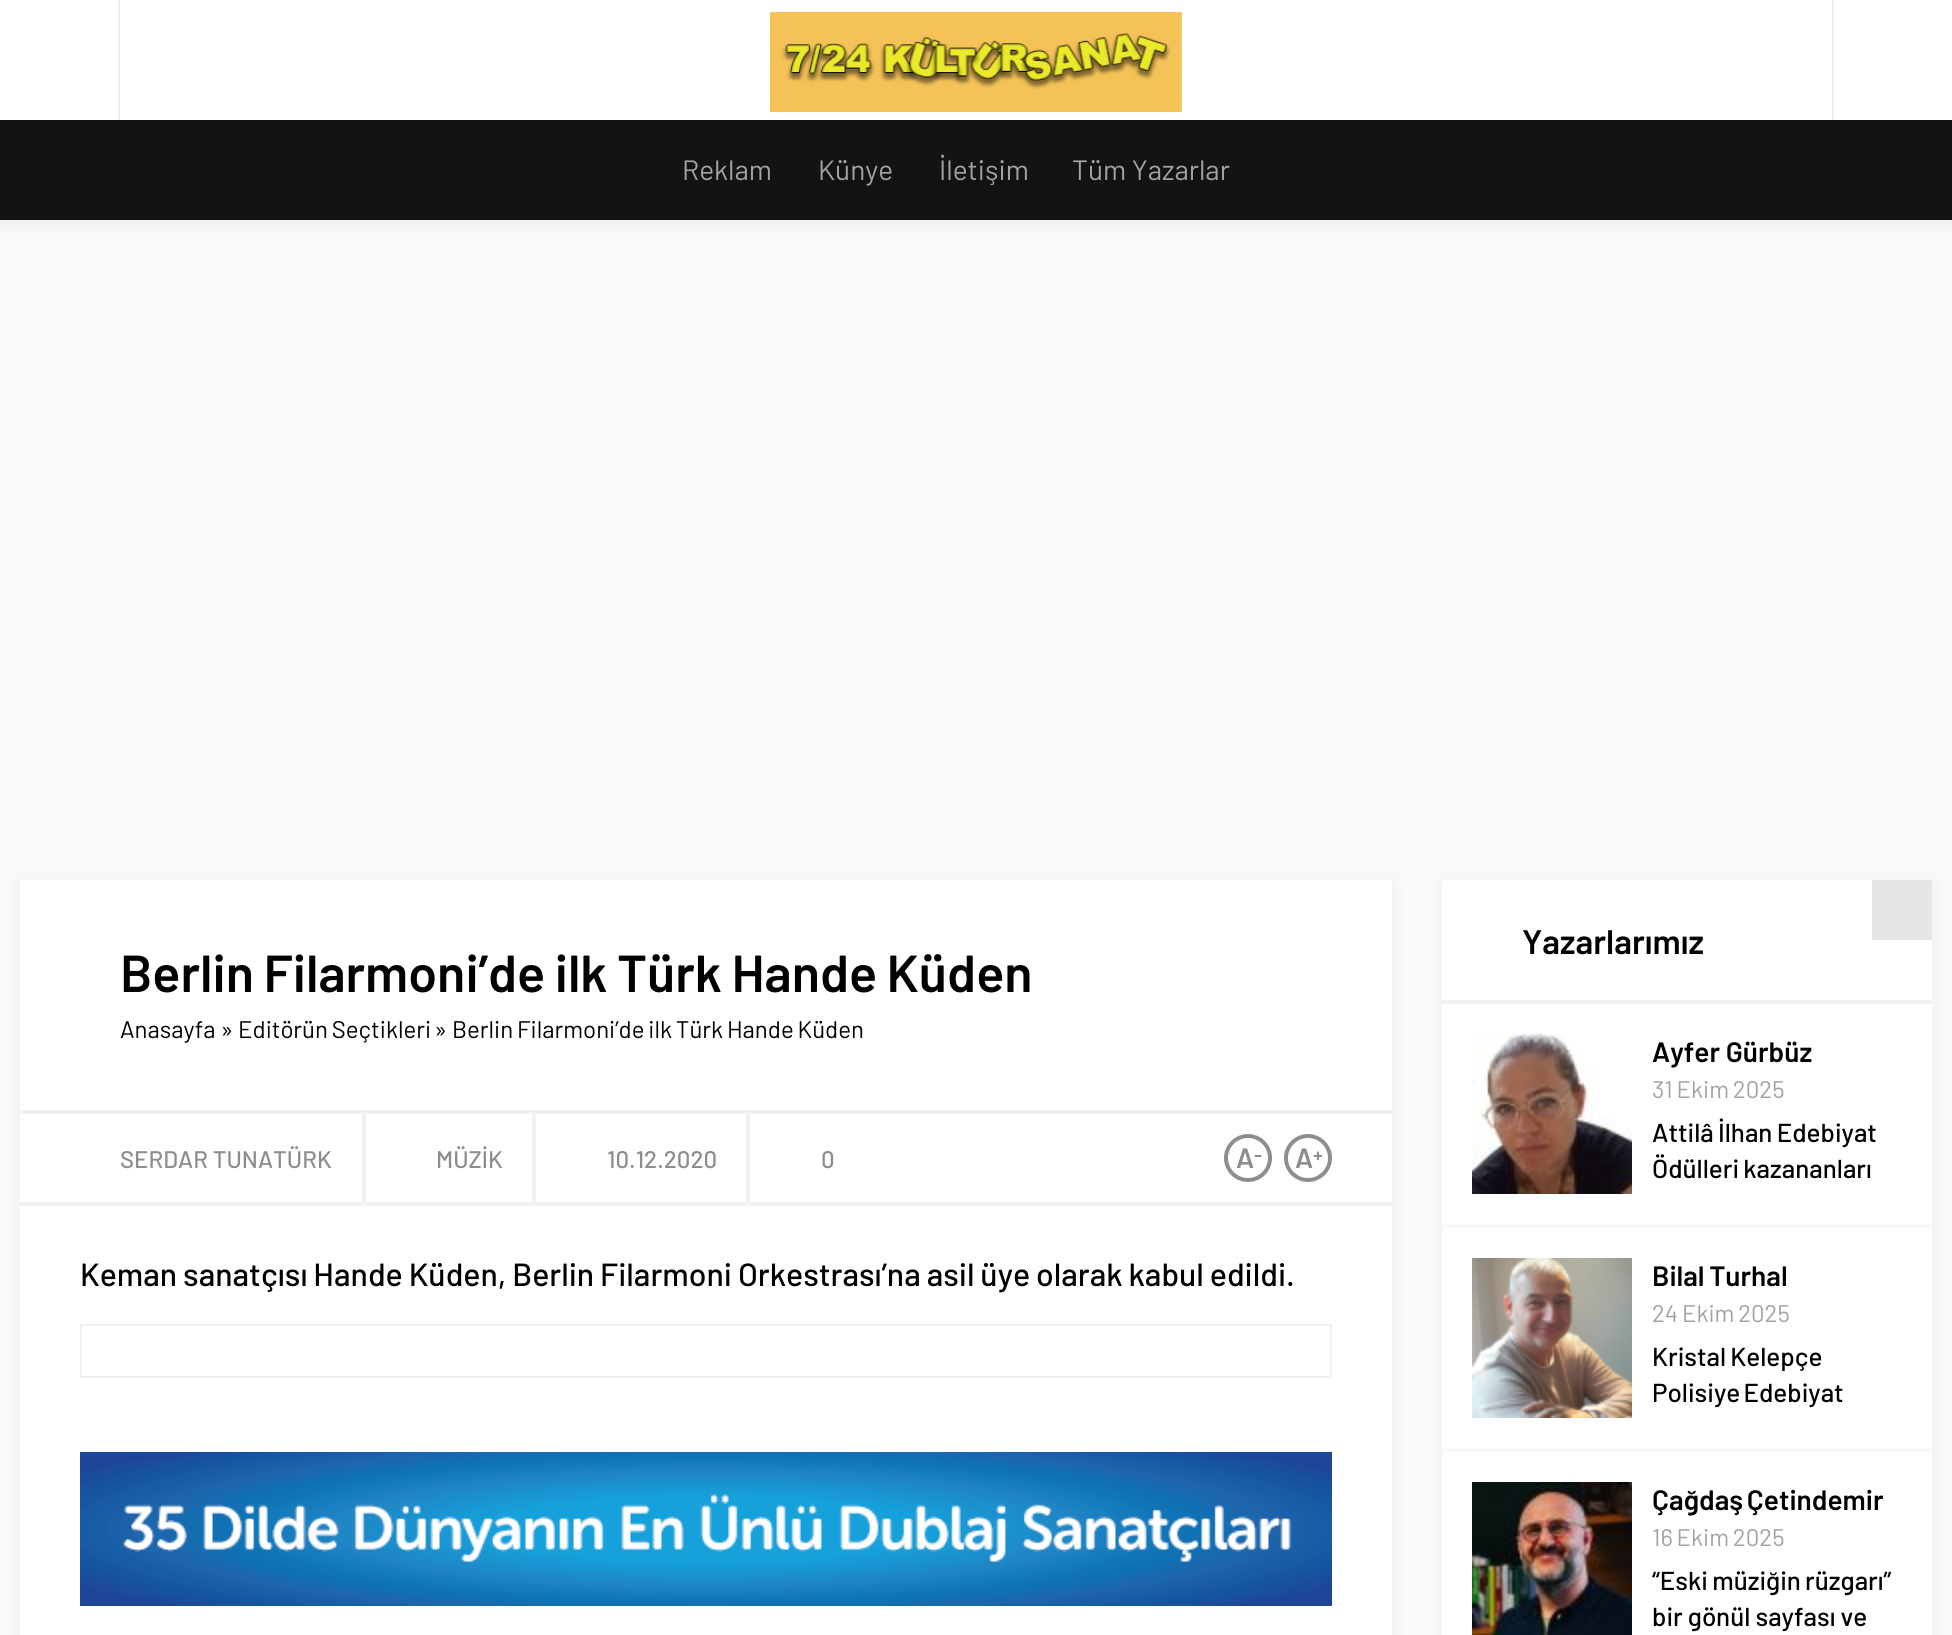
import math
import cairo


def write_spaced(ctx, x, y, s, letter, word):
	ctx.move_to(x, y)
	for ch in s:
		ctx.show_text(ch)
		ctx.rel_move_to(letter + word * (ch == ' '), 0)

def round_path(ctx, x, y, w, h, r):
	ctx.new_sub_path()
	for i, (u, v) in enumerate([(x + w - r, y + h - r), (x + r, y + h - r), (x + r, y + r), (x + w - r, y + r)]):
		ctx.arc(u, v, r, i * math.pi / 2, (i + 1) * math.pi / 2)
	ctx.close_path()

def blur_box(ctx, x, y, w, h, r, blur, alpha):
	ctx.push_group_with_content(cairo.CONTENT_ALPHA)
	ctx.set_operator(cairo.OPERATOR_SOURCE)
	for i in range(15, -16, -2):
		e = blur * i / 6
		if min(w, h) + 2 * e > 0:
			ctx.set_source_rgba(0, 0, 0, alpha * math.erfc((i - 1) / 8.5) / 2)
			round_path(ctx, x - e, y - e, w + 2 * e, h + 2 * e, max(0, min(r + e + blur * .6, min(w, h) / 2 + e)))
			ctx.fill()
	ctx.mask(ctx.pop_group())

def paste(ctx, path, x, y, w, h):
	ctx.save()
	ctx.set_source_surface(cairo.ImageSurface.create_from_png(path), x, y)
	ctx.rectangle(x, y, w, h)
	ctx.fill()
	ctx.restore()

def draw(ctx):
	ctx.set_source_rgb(0.973, 0.973, 0.973)
	ctx.paint()
	ctx.set_source_rgb(0, 0, 0)
	blur_box(ctx, 0, 124, 1952, 100, 0, 8, 0.05)
	ctx.set_source_rgb(1, 1, 1)
	ctx.rectangle(0, 0, 1952, 120)
	ctx.fill()
	ctx.set_source_rgb(0.933, 0.933, 0.933)
	ctx.rectangle(118, 0, 2, 120)
	ctx.fill()
	paste(ctx, 'media/1.png', 770, 12, 412, 101)
	ctx.rectangle(1832, 0, 2, 120)
	ctx.fill()
	ctx.set_source_rgb(0.075, 0.075, 0.075)
	ctx.rectangle(0, 120, 1952, 100)
	ctx.fill()
	ctx.select_font_face('Barlow')
	ctx.set_font_size(28)
	ctx.set_source_rgb(0.635, 0.635, 0.635)
	for x, y, s in [
		(682, 180, 'Reklam'),
		(818, 180, 'Künye'),
		(939, 180, 'İletişim'),
		(1072, 180, 'Tüm Yazarlar'),
	]:
		ctx.move_to(x, y)
		ctx.show_text(s)
	ctx.set_source_rgb(0, 0, 0)
	blur_box(ctx, 20, 884, 1372, 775, 0, 8, 0.05)
	ctx.set_source_rgb(1, 1, 1)
	ctx.rectangle(20, 880, 1372, 755)
	ctx.fill()
	ctx.select_font_face('Barlow SemiBold')
	ctx.set_font_size(52)
	ctx.set_source_rgb(0, 0, 0)
	write_spaced(ctx, 120, 992, 'Berlin Filarmoni’de ilk Türk Hande Küden', 0, -1)
	ctx.select_font_face('Barlow')
	ctx.set_font_size(24)
	ctx.move_to(120, 1038)
	ctx.show_text('Anasayfa »')
	write_spaced(ctx, 238, 1038, 'Editörün Seçtikleri', 0, -1)
	ctx.move_to(434, 1038)
	ctx.show_text('»')
	write_spaced(ctx, 452, 1038, 'Berlin Filarmoni’de ilk Türk Hande Küden', 0, -1)
	ctx.set_source_rgb(0.945, 0.945, 0.945)
	ctx.rectangle(20, 1110, 1372, 4)
	ctx.fill()
	ctx.rectangle(20, 1202, 1372, 4)
	ctx.fill()
	ctx.select_font_face('Barlow Medium')
	ctx.set_source_rgb(0.553, 0.553, 0.553)
	ctx.move_to(120, 1168)
	ctx.show_text('SERDAR TUNATÜRK')
	ctx.set_source_rgb(0.945, 0.945, 0.945)
	ctx.rectangle(362, 1114, 4, 88)
	ctx.fill()
	ctx.set_source_rgb(0.553, 0.553, 0.553)
	ctx.move_to(436, 1168)
	ctx.show_text('MÜZİK')
	ctx.set_source_rgb(0.945, 0.945, 0.945)
	ctx.rectangle(532, 1114, 4, 88)
	ctx.fill()
	ctx.set_source_rgb(0.553, 0.553, 0.553)
	ctx.move_to(607, 1168)
	ctx.show_text('10.12.2020')
	ctx.set_source_rgb(0.945, 0.945, 0.945)
	ctx.rectangle(746, 1114, 4, 88)
	ctx.fill()
	ctx.set_source_rgb(0.553, 0.553, 0.553)
	ctx.move_to(821, 1168)
	ctx.show_text('0')
	ctx.new_path()
	ctx.arc(1248, 1158, 22, 0, 2 * math.pi)
	ctx.set_source_rgb(0.557, 0.557, 0.557)
	ctx.set_line_width(4)
	ctx.stroke()
	ctx.select_font_face('Barlow SemiBold')
	ctx.set_font_size(28)
	ctx.set_source_rgb(0.553, 0.553, 0.553)
	ctx.move_to(1236, 1168)
	ctx.show_text('A')
	ctx.set_font_size(20)
	ctx.move_to(1254, 1162)
	ctx.show_text('-')
	ctx.new_path()
	ctx.arc(1308, 1158, 22, 0, 2 * math.pi)
	ctx.set_source_rgb(0.557, 0.557, 0.557)
	ctx.stroke()
	ctx.set_font_size(28)
	ctx.set_source_rgb(0.553, 0.553, 0.553)
	ctx.move_to(1295, 1168)
	ctx.show_text('A')
	ctx.set_font_size(20)
	ctx.move_to(1313, 1162)
	ctx.show_text('+')
	ctx.select_font_face('Barlow Medium')
	ctx.set_font_size(32)
	ctx.set_source_rgb(0, 0, 0)
	write_spaced(ctx, 80, 1286, 'Keman sanatçısı Hande Küden, Berlin Filarmoni Orkestrası’na asil üye olarak kabul edildi.', 0, -0.5)
	ctx.rectangle(81, 1325, 1250, 52)
	ctx.set_source_rgb(0.945, 0.945, 0.945)
	ctx.set_line_width(2)
	ctx.stroke()
	paste(ctx, 'media/2.png', 80, 1452, 1252, 154)
	ctx.set_source_rgb(0, 0, 0)
	blur_box(ctx, 1442, 884, 490, 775, 0, 8, 0.05)
	ctx.set_source_rgb(1, 1, 1)
	ctx.rectangle(1442, 880, 490, 755)
	ctx.fill()
	ctx.set_source_rgb(0.902, 0.902, 0.902)
	ctx.rectangle(1872, 880, 60, 60)
	ctx.fill()
	ctx.select_font_face('Barlow SemiBold')
	ctx.set_font_size(34)
	ctx.set_source_rgb(0, 0, 0)
	ctx.move_to(1522, 954)
	ctx.show_text('Yazarlarımız')
	ctx.set_source_rgb(0.945, 0.945, 0.945)
	ctx.rectangle(1442, 1000, 490, 4)
	ctx.fill()
	ctx.set_source_rgb(0.969, 0.969, 0.969)
	ctx.rectangle(1442, 1224, 490, 4)
	ctx.fill()
	paste(ctx, 'media/3.png', 1472, 1034, 160, 160)
	ctx.set_font_size(28)
	ctx.set_source_rgb(0, 0, 0)
	ctx.move_to(1652, 1062)
	ctx.show_text('Ayfer Gürbüz')
	ctx.select_font_face('Barlow')
	ctx.set_font_size(24)
	ctx.set_source_rgb(0.635, 0.635, 0.635)
	write_spaced(ctx, 1652, 1098, '31 Ekim 2025', 0, -1)
	ctx.select_font_face('Barlow Medium')
	ctx.set_font_size(26)
	ctx.set_source_rgb(0, 0, 0)
	write_spaced(ctx, 1652, 1142, 'Attilâ İlhan Edebiyat', 0, -1)
	write_spaced(ctx, 1652, 1178, 'Ödülleri kazananları', 0, -1)
	ctx.set_source_rgb(0.969, 0.969, 0.969)
	ctx.rectangle(1442, 1448, 490, 4)
	ctx.fill()
	paste(ctx, 'media/4.png', 1472, 1258, 160, 160)
	ctx.select_font_face('Barlow SemiBold')
	ctx.set_font_size(28)
	ctx.set_source_rgb(0, 0, 0)
	write_spaced(ctx, 1652, 1286, 'Bilal Turhal', 0, -1)
	ctx.select_font_face('Barlow')
	ctx.set_font_size(24)
	ctx.set_source_rgb(0.635, 0.635, 0.635)
	write_spaced(ctx, 1652, 1322, '24 Ekim 2025', 0, -1)
	ctx.select_font_face('Barlow Medium')
	ctx.set_font_size(26)
	ctx.set_source_rgb(0, 0, 0)
	write_spaced(ctx, 1652, 1366, 'Kristal Kelepçe', 0, -1)
	write_spaced(ctx, 1652, 1402, 'Polisiye Edebiyat', 0, -2)
	paste(ctx, 'media/5.png', 1472, 1482, 160, 153)
	ctx.select_font_face('Barlow SemiBold')
	ctx.set_font_size(28)
	write_spaced(ctx, 1652, 1510, 'Çağdaş Çetindemir', 0, -2)
	ctx.select_font_face('Barlow')
	ctx.set_font_size(24)
	ctx.set_source_rgb(0.635, 0.635, 0.635)
	write_spaced(ctx, 1652, 1546, '16 Ekim 2025', 0, -1)
	ctx.select_font_face('Barlow Medium')
	ctx.set_font_size(26)
	ctx.set_source_rgb(0, 0, 0)
	write_spaced(ctx, 1652, 1590, '“Eski müziğin rüzgarı”', 0, -1)
	ctx.move_to(1652, 1626)
	ctx.show_text('bir gönül sayfası ve')


surface = cairo.ImageSurface(cairo.FORMAT_RGB24, 1952, 1635)
ctx = cairo.Context(surface)
options = cairo.FontOptions()
options.set_hint_metrics(cairo.HINT_METRICS_OFF)
options.set_hint_style(cairo.HINT_STYLE_NONE)
ctx.set_font_options(options)
ctx.set_miter_limit(4)
draw(ctx)
surface.write_to_png('image.png')
